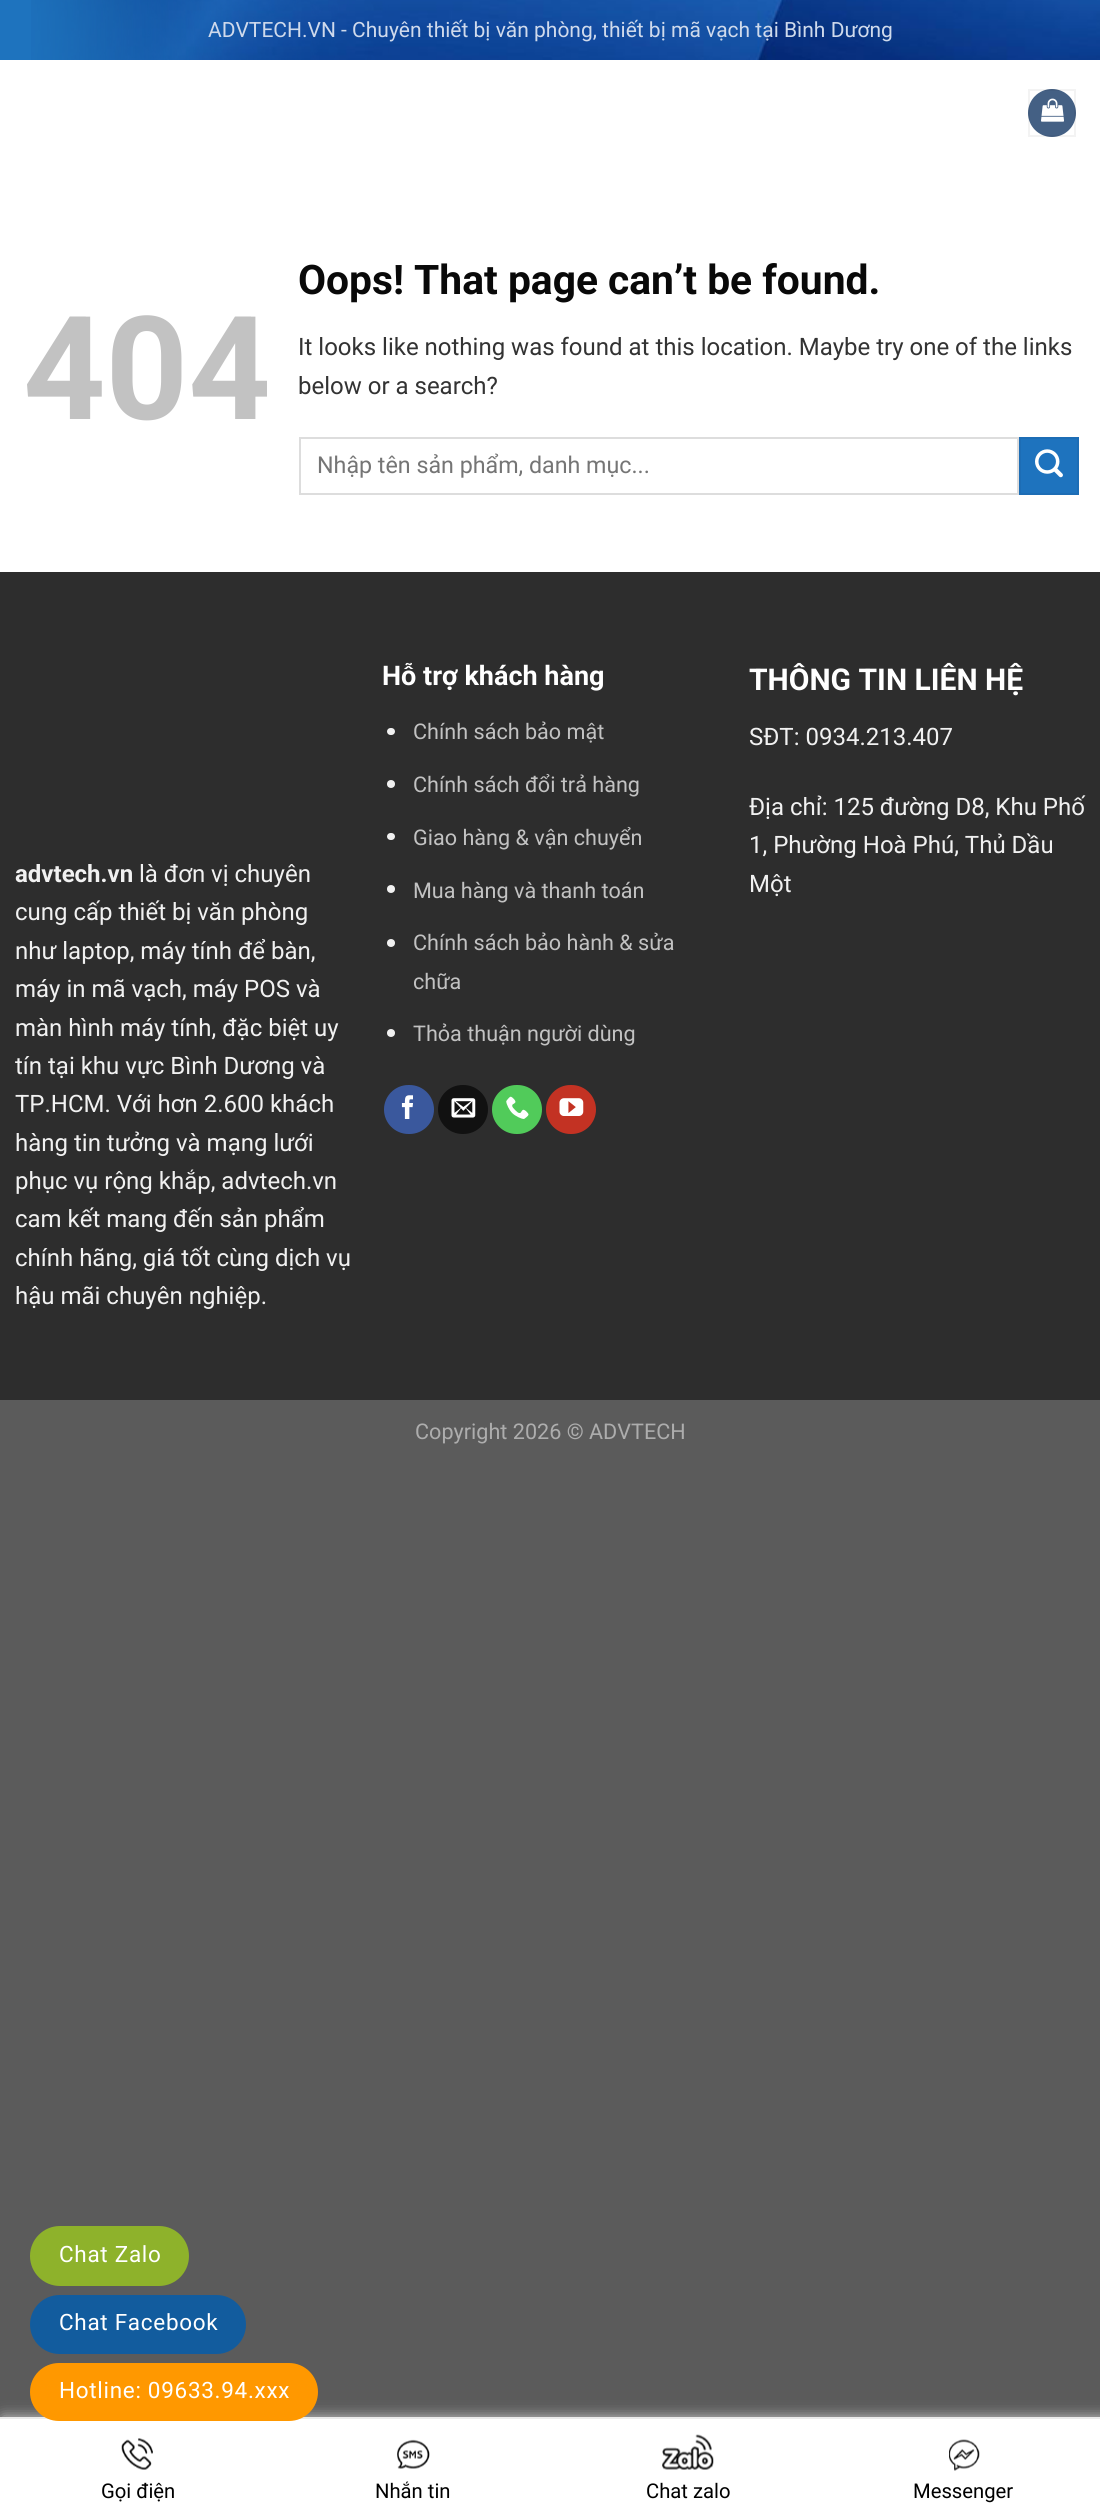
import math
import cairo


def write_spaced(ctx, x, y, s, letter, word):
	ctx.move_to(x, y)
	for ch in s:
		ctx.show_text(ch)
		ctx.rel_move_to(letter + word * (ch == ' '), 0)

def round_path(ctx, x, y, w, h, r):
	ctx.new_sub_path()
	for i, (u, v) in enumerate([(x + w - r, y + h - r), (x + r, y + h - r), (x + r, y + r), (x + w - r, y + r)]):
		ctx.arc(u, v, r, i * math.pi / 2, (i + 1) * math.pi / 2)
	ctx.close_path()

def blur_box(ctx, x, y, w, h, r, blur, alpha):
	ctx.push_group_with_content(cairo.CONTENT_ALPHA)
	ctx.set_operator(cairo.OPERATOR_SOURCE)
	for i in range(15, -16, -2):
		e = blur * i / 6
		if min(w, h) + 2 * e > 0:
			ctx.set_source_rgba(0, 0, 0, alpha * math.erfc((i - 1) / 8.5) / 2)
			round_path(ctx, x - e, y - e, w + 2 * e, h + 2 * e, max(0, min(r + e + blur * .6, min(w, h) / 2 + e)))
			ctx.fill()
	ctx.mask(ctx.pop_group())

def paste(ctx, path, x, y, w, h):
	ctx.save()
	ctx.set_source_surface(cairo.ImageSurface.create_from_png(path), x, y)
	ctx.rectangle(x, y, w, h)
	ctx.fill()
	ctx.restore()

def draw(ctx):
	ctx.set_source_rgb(0.357, 0.357, 0.357)
	ctx.paint()
	ctx.set_source_rgb(1, 1, 1)
	ctx.rectangle(0, 60, 1100, 512)
	ctx.fill()
	ctx.set_source_rgb(0.118, 0.451, 0.745)
	ctx.rectangle(0, 0, 388, 60)
	ctx.fill()
	paste(ctx, 'media/1.png', 31, 0, 1069, 60)
	ctx.select_font_face('Roboto')
	ctx.set_font_size(21)
	ctx.set_source_rgb(0.812, 0.855, 0.922)
	ctx.move_to(208, 37)
	ctx.show_text('ADVTECH.VN - Chuyên thiết bị văn phòng, thiết bị mã vạch tại Bình Dương')
	ctx.set_source_rgb(0.267, 0.376, 0.518)
	ctx.new_path()
	ctx.arc(1052, 113, 24, 0, 2 * math.pi)
	ctx.fill()
	ctx.rectangle(1029, 90, 46, 46)
	ctx.set_source_rgba(0, 0, 0, 0.05)
	ctx.stroke()
	paste(ctx, 'media/2.png', 1041, 98, 23, 24)
	ctx.select_font_face('Roboto', cairo.FONT_SLANT_NORMAL, cairo.FONT_WEIGHT_BOLD)
	ctx.set_font_size(144)
	ctx.set_source_rgb(0.761, 0.761, 0.761)
	ctx.move_to(23, 419)
	ctx.show_text('404')
	ctx.set_font_size(40.75)
	ctx.set_source_rgb(0.039, 0.039, 0.039)
	ctx.move_to(298, 294)
	ctx.show_text('Oops! That page can’t be found.')
	ctx.select_font_face('Roboto')
	ctx.set_font_size(24)
	ctx.set_source_rgb(0.2, 0.2, 0.2)
	ctx.move_to(298, 355)
	ctx.show_text('It looks like nothing was found at this location. Maybe try one of the links')
	ctx.move_to(298, 394)
	ctx.show_text('below or a search?')
	ctx.rectangle(300, 438, 718, 56)
	ctx.set_source_rgb(0.867, 0.867, 0.867)
	ctx.stroke()
	ctx.set_font_size(23.25)
	ctx.set_source_rgb(0.459, 0.459, 0.459)
	ctx.move_to(317, 473)
	ctx.show_text('Nhập tên sản phẩm, danh mục...')
	ctx.set_source_rgb(0.118, 0.451, 0.745)
	ctx.rectangle(1020, 438, 58, 56)
	ctx.fill_preserve()
	ctx.set_source_rgb(0.114, 0.427, 0.71)
	ctx.stroke()
	paste(ctx, 'media/3.png', 1035, 449, 28, 29)
	ctx.set_source_rgb(0.176, 0.176, 0.176)
	ctx.rectangle(0, 572, 1100, 828)
	ctx.fill()
	ctx.select_font_face('Roboto', cairo.FONT_SLANT_NORMAL, cairo.FONT_WEIGHT_BOLD)
	ctx.set_font_size(27)
	ctx.set_source_rgb(1, 1, 1)
	ctx.move_to(382, 685)
	ctx.show_text('Hỗ trợ khách hàng')
	ctx.set_source_rgb(0.945, 0.945, 0.945)
	round_path(ctx, 387, 728, 8, 7, 3.5)
	ctx.fill()
	ctx.select_font_face('Roboto')
	ctx.set_font_size(21.6)
	ctx.set_source_rgb(0.761, 0.761, 0.761)
	ctx.move_to(413, 739)
	ctx.show_text('Chính sách bảo mật')
	ctx.set_source_rgb(0.945, 0.945, 0.945)
	ctx.new_path()
	ctx.arc(391, 784, 4, 0, 2 * math.pi)
	ctx.fill()
	ctx.set_source_rgb(0.761, 0.761, 0.761)
	ctx.move_to(413, 792)
	ctx.show_text('Chính sách đổi trả hàng')
	ctx.set_source_rgb(0.945, 0.945, 0.945)
	round_path(ctx, 387, 833, 8, 7, 3.5)
	ctx.fill()
	ctx.set_source_rgb(0.761, 0.761, 0.761)
	ctx.move_to(413, 845)
	ctx.show_text('Giao hàng & vận chuyển')
	ctx.set_source_rgb(0.945, 0.945, 0.945)
	ctx.new_path()
	ctx.arc(391, 889, 4, 0, 2 * math.pi)
	ctx.fill()
	ctx.set_source_rgb(0.761, 0.761, 0.761)
	ctx.move_to(413, 898)
	ctx.show_text('Mua hàng và thanh toán')
	ctx.set_source_rgb(0.945, 0.945, 0.945)
	ctx.new_path()
	ctx.arc(391, 943, 4, 0, 2 * math.pi)
	ctx.fill()
	ctx.set_source_rgb(0.761, 0.761, 0.761)
	ctx.move_to(413, 950)
	ctx.show_text('Chính sách bảo hành & sửa')
	ctx.move_to(413, 989)
	ctx.show_text('chữa')
	ctx.set_source_rgb(0.945, 0.945, 0.945)
	ctx.new_path()
	ctx.arc(391, 1033, 4, 0, 2 * math.pi)
	ctx.fill()
	ctx.set_source_rgb(0.761, 0.761, 0.761)
	ctx.move_to(413, 1041)
	ctx.show_text('Thỏa thuận người dùng')
	ctx.set_source_rgb(0.227, 0.345, 0.616)
	round_path(ctx, 385, 1086, 48, 47, 23.5)
	ctx.fill_preserve()
	ctx.stroke()
	paste(ctx, 'media/4.png', 401, 1095, 12, 24)
	ctx.set_source_rgb(0.067, 0.067, 0.067)
	round_path(ctx, 439, 1086, 48, 47, 23.5)
	ctx.fill_preserve()
	ctx.stroke()
	paste(ctx, 'media/5.png', 451, 1098, 25, 20)
	ctx.set_source_rgb(0.318, 0.796, 0.353)
	round_path(ctx, 493, 1086, 48, 47, 23.5)
	ctx.fill_preserve()
	ctx.stroke()
	paste(ctx, 'media/6.png', 506, 1096, 23, 23)
	ctx.set_source_rgb(0.765, 0.196, 0.137)
	round_path(ctx, 547, 1086, 48, 47, 23.5)
	ctx.fill_preserve()
	ctx.stroke()
	paste(ctx, 'media/7.png', 559, 1098, 25, 18)
	ctx.select_font_face('Roboto', cairo.FONT_SLANT_NORMAL, cairo.FONT_WEIGHT_BOLD)
	ctx.set_font_size(30)
	ctx.set_source_rgb(1, 1, 1)
	ctx.move_to(749, 690)
	ctx.show_text('THÔNG TIN LIÊN HỆ')
	ctx.select_font_face('Roboto')
	ctx.set_font_size(24)
	ctx.set_source_rgb(0.945, 0.945, 0.945)
	for x, y, s in [
		(749, 745, 'SĐT: 0934.213.407'),
		(749, 815, 'Địa chỉ: 125 đường D8, Khu Phố'),
		(749, 853, '1, Phường Hoà Phú, Thủ Dầu'),
		(749, 892, 'Một'),
	]:
		ctx.move_to(x, y)
		ctx.show_text(s)
	ctx.select_font_face('Roboto', cairo.FONT_SLANT_NORMAL, cairo.FONT_WEIGHT_BOLD)
	ctx.move_to(15, 882)
	ctx.show_text('advtech.vn')
	ctx.select_font_face('Roboto')
	for x, y, s in [
		(139, 882, 'là đơn vị chuyên'),
		(15, 920, 'cung cấp thiết bị văn phòng'),
		(15, 959, 'như laptop, máy tính để bàn,'),
		(15, 997, 'máy in mã vạch, máy POS và'),
		(15, 1036, 'màn hình máy tính, đặc biệt uy'),
		(15, 1074, 'tín tại khu vực Bình Dương và'),
		(15, 1112, 'TP.HCM. Với hơn 2.600 khách'),
		(15, 1151, 'hàng tin tưởng và mạng lưới'),
		(15, 1189, 'phục vụ rộng khắp, advtech.vn'),
		(15, 1227, 'cam kết mang đến sản phẩm'),
		(15, 1266, 'chính hãng, giá tốt cùng dịch vụ'),
		(15, 1304, 'hậu mãi chuyên nghiệp.'),
	]:
		ctx.move_to(x, y)
		ctx.show_text(s)
	ctx.set_font_size(21.6)
	ctx.set_source_rgb(0.678, 0.678, 0.678)
	ctx.move_to(415, 1439)
	ctx.show_text('Copyright 2026 © ADVTECH')
	ctx.set_source_rgb(0.557, 0.698, 0.169)
	round_path(ctx, 30, 2226, 159, 60, 30)
	ctx.fill()
	ctx.set_font_size(22.5)
	ctx.set_source_rgb(1, 1, 1)
	write_spaced(ctx, 59, 2262, 'Chat Zalo', 0.7, 0)
	ctx.set_source_rgb(0.071, 0.361, 0.62)
	round_path(ctx, 30, 2295, 216, 59, 29.5)
	ctx.fill()
	ctx.set_source_rgb(1, 1, 1)
	write_spaced(ctx, 59, 2330, 'Chat Facebook', 0.7, 0)
	ctx.set_source_rgb(0.871, 0.871, 0.871)
	blur_box(ctx, 3, 2418, 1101, 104, 0, 7, 1)
	ctx.set_source_rgb(1, 1, 1)
	ctx.rectangle(0, 2419, 1100, 100)
	ctx.fill()
	ctx.set_source_rgb(0.918, 0.918, 0.918)
	ctx.rectangle(0, 2417, 1100, 2)
	ctx.fill()
	ctx.set_source_rgb(1, 0.596, 0)
	round_path(ctx, 30, 2363, 288, 58, 29)
	ctx.fill()
	ctx.set_source_rgb(1, 1, 1)
	write_spaced(ctx, 59, 2398, 'Hotline: 09633.94.xxx', 0.7, 0)
	paste(ctx, 'media/8.png', 121, 2438, 32, 32)
	ctx.set_font_size(20.25)
	ctx.set_source_rgb(0, 0, 0)
	ctx.move_to(101, 2498)
	ctx.show_text('Gọi điện')
	paste(ctx, 'media/9.png', 397, 2439, 33, 30)
	ctx.move_to(375, 2498)
	ctx.show_text('Nhắn tin')
	paste(ctx, 'media/10.png', 662, 2434, 52, 36)
	ctx.move_to(646, 2498)
	ctx.show_text('Chat zalo')
	paste(ctx, 'media/11.png', 949, 2439, 31, 32)
	ctx.move_to(913, 2498)
	ctx.show_text('Messenger')


surface = cairo.ImageSurface(cairo.FORMAT_RGB24, 1100, 2519)
ctx = cairo.Context(surface)
options = cairo.FontOptions()
options.set_hint_metrics(cairo.HINT_METRICS_OFF)
options.set_hint_style(cairo.HINT_STYLE_NONE)
ctx.set_font_options(options)
ctx.set_miter_limit(4)
draw(ctx)
surface.write_to_png('image.png')
